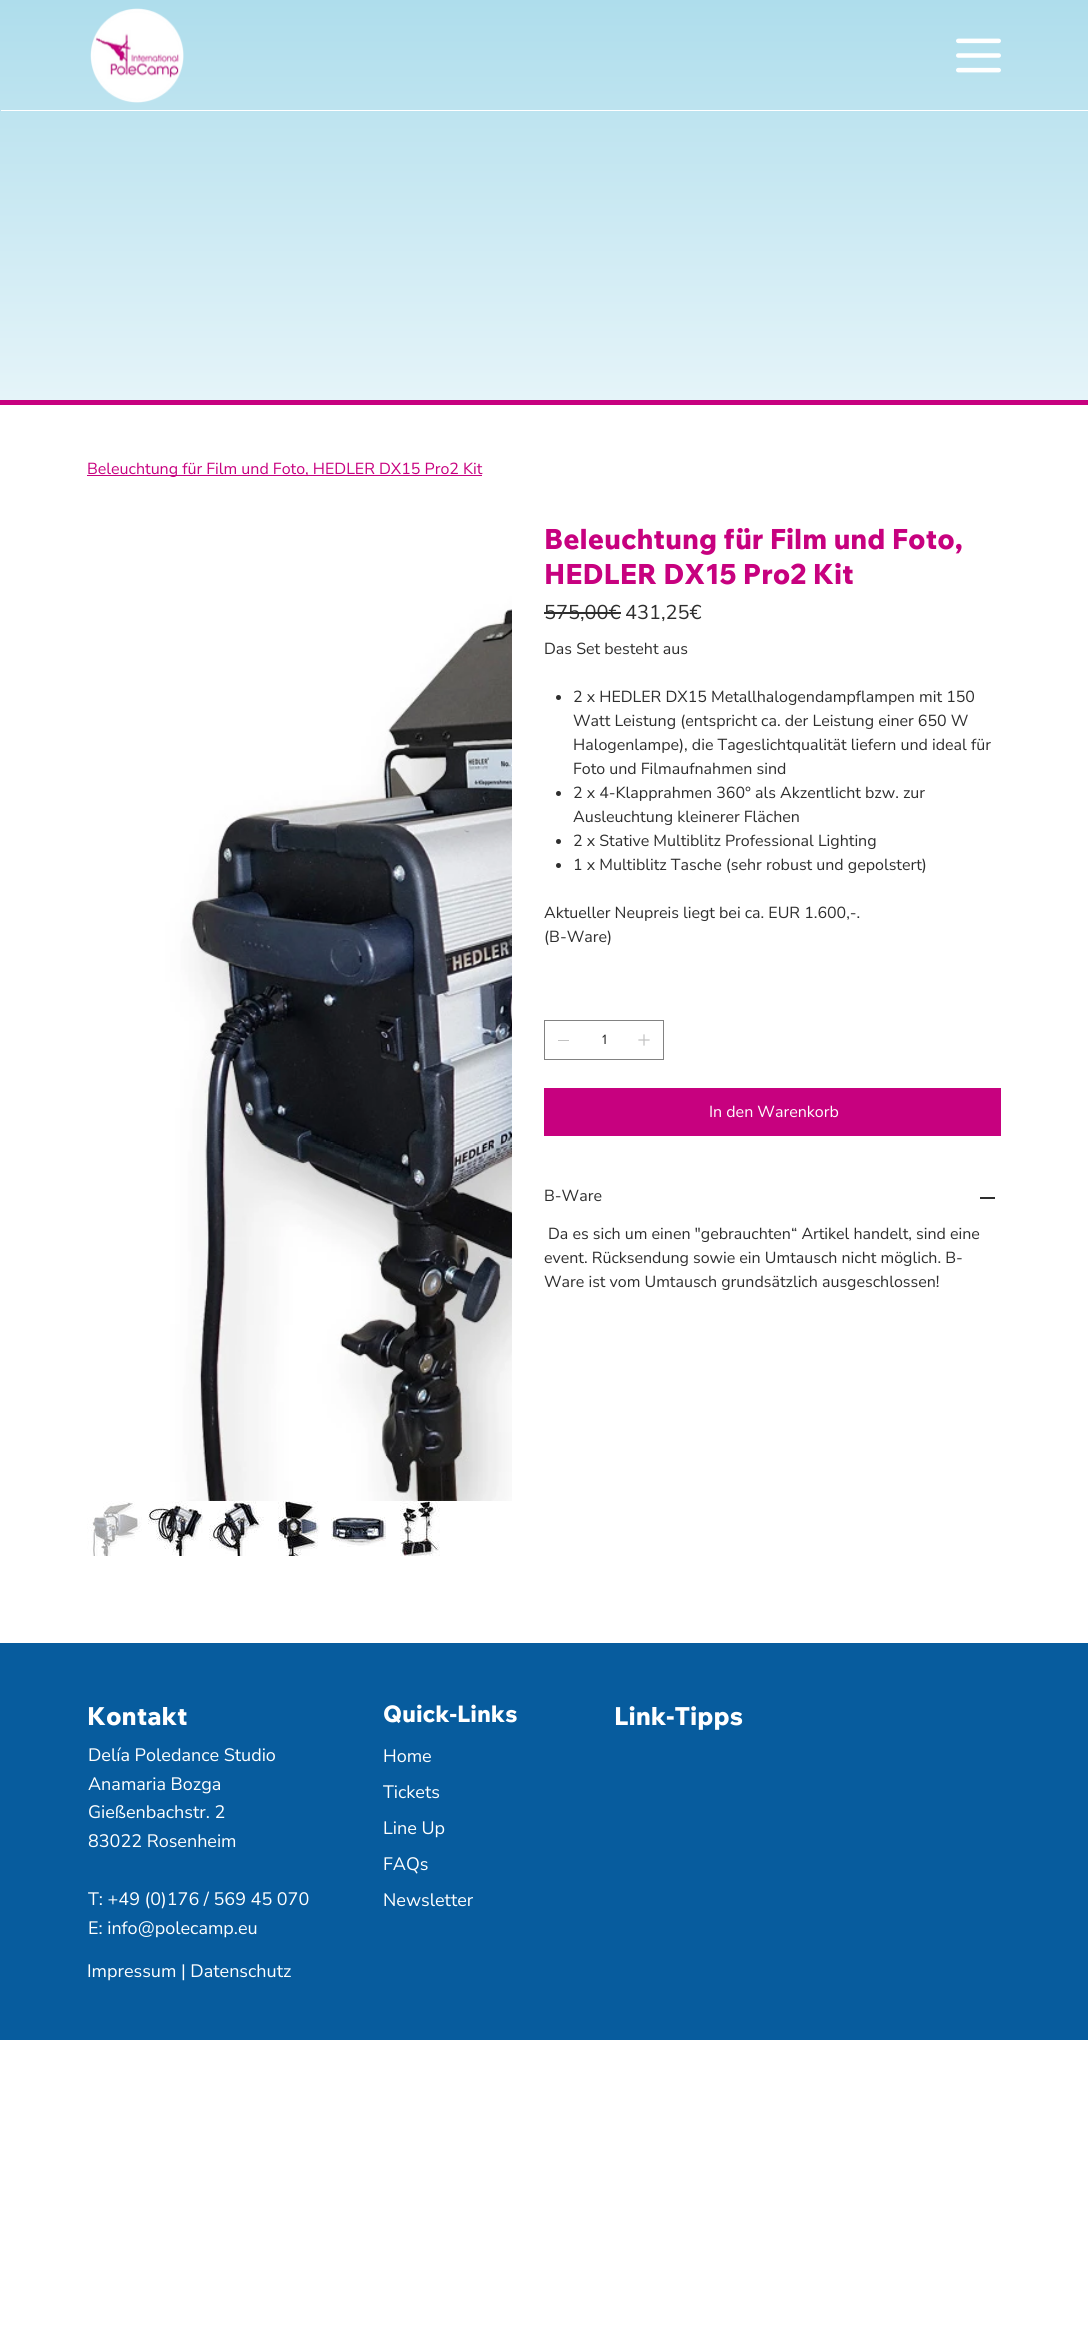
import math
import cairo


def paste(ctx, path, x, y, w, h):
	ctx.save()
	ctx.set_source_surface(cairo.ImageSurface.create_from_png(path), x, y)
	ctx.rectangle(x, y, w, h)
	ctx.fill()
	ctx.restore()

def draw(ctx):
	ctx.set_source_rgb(1, 1, 1)
	ctx.paint()
	gradient = cairo.LinearGradient(544, 0, 544, 400)
	gradient.add_color_stop_rgba(0, 0.682, 0.867, 0.925, 1)
	gradient.add_color_stop_rgba(1, 0.898, 0.957, 0.976, 1)
	ctx.set_source(gradient)
	ctx.rectangle(0, 0, 1088, 400)
	ctx.fill()
	paste(ctx, 'media/1.png', 90, 8, 94, 95)
	ctx.set_source_rgb(1, 1, 1)
	ctx.rectangle(1, 110, 1087, 1)
	ctx.fill()
	paste(ctx, 'media/2.png', 956, 38, 45, 35)
	ctx.set_source_rgb(0.78, 0.004, 0.498)
	ctx.rectangle(0, 400, 1088, 5)
	ctx.fill()
	ctx.rectangle(87, 475, 395, 1)
	ctx.fill()
	ctx.select_font_face('Nunito Sans')
	ctx.set_font_size(16)
	ctx.move_to(87, 474)
	ctx.show_text('Beleuchtung für Film und Foto, HEDLER DX15 Pro2 Kit')
	paste(ctx, 'media/3.png', 87, 521, 425, 980)
	paste(ctx, 'media/4.png', 87, 1501, 55, 55)
	paste(ctx, 'media/5.png', 148, 1501, 55, 55)
	paste(ctx, 'media/6.png', 209, 1501, 55, 55)
	paste(ctx, 'media/7.png', 278, 1501, 42, 55)
	paste(ctx, 'media/8.png', 331, 1517, 55, 30)
	paste(ctx, 'media/9.png', 400, 1501, 40, 55)
	ctx.select_font_face('Wix Madefor Text ExtraBold')
	ctx.set_font_size(28)
	ctx.move_to(544, 549)
	ctx.show_text('Beleuchtung für Film und Foto,')
	ctx.move_to(544, 584)
	ctx.show_text('HEDLER DX15 Pro2 Kit')
	ctx.select_font_face('Nunito Sans')
	ctx.set_font_size(20)
	ctx.set_source_rgb(0.18, 0.18, 0.18)
	ctx.move_to(544, 619)
	ctx.show_text('575,00€')
	ctx.rectangle(544, 612, 77, 2)
	ctx.fill()
	ctx.move_to(625, 619)
	ctx.show_text('431,25€')
	ctx.set_font_size(16)
	ctx.move_to(544, 654)
	ctx.show_text('Das Set besteht aus')
	ctx.new_path()
	ctx.arc(558.5, 697.5, 2.5, 0, 2 * math.pi)
	ctx.fill()
	for x, y, s in [
		(573, 702, '2 x HEDLER DX15 Metallhalogendampflampen mit 150'),
		(573, 726, 'Watt Leistung (entspricht ca. der Leistung einer 650 W'),
		(573, 750, 'Halogenlampe), die Tageslichtqualität liefern und ideal für'),
		(573, 774, 'Foto und Filmaufnahmen sind'),
	]:
		ctx.move_to(x, y)
		ctx.show_text(s)
	ctx.new_path()
	ctx.arc(558.5, 793.5, 2.5, 0, 2 * math.pi)
	ctx.fill()
	ctx.move_to(573, 798)
	ctx.show_text('2 x 4-Klapprahmen 360° als Akzentlicht bzw. zur')
	ctx.move_to(573, 822)
	ctx.show_text('Ausleuchtung kleinerer Flächen')
	ctx.new_path()
	ctx.arc(558.5, 841.5, 2.5, 0, 2 * math.pi)
	ctx.fill()
	ctx.move_to(573, 846)
	ctx.show_text('2 x Stative Multiblitz Professional Lighting')
	ctx.new_path()
	ctx.arc(558.5, 865.5, 2.5, 0, 2 * math.pi)
	ctx.fill()
	for x, y, s in [
		(573, 870, '1 x Multiblitz Tasche (sehr robust und gepolstert)'),
		(544, 918, 'Aktueller Neupreis liegt bei ca. EUR 1.600,-.'),
		(544, 942, '(B-Ware)'),
	]:
		ctx.move_to(x, y)
		ctx.show_text(s)
	ctx.rectangle(544.5, 1020.5, 119, 39)
	ctx.set_source_rgb(0.51, 0.51, 0.51)
	ctx.set_line_width(1)
	ctx.stroke()
	ctx.set_source_rgb(0.761, 0.761, 0.761)
	ctx.rectangle(558, 1040, 11, 1)
	ctx.fill()
	ctx.select_font_face('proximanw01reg')
	ctx.set_font_size(14)
	ctx.set_source_rgb(0.18, 0.18, 0.18)
	ctx.move_to(602, 1044)
	ctx.show_text('1')
	paste(ctx, 'media/10.png', 638, 1034, 12, 12)
	ctx.set_source_rgb(0.78, 0.004, 0.498)
	ctx.rectangle(544, 1088, 457, 48)
	ctx.fill()
	ctx.select_font_face('Nunito Sans')
	ctx.set_font_size(16)
	ctx.set_source_rgb(1, 1, 1)
	ctx.move_to(709, 1117)
	ctx.show_text('In den Warenkorb')
	ctx.set_source_rgb(0.18, 0.18, 0.18)
	ctx.move_to(544, 1201)
	ctx.show_text('B-Ware')
	ctx.rectangle(980, 1197, 15, 2)
	ctx.fill()
	for x, y, s in [
		(548, 1239, 'Da es sich um einen "gebrauchten“ Artikel handelt, sind eine'),
		(544, 1263, 'event. Rücksendung sowie ein Umtausch nicht möglich. B-'),
		(544, 1287, 'Ware ist vom Umtausch grundsätzlich ausgeschlossen!'),
	]:
		ctx.move_to(x, y)
		ctx.show_text(s)
	ctx.set_source_rgb(0.031, 0.361, 0.62)
	ctx.rectangle(0, 1643, 1088, 397)
	ctx.fill()
	ctx.select_font_face('Wix Madefor Text ExtraBold')
	ctx.set_font_size(25)
	ctx.set_source_rgb(1, 1, 1)
	ctx.move_to(87, 1725)
	ctx.show_text('Kontakt')
	ctx.select_font_face('Nunito Sans')
	ctx.set_font_size(18)
	for x, y, s in [
		(88, 1761, 'Delía Poledance Studio'),
		(88, 1790, 'Anamaria Bozga'),
		(88, 1818, 'Gießenbachstr. 2'),
		(88, 1847, '83022 Rosenheim'),
		(88, 1905, 'T: +49 (0)176 / 569 45 070'),
		(88, 1934, 'E: info@polecamp.eu'),
	]:
		ctx.move_to(x, y)
		ctx.show_text(s)
	ctx.select_font_face('Wix Madefor Text ExtraBold')
	ctx.set_font_size(23)
	ctx.move_to(383, 1722)
	ctx.show_text('Quick-Links')
	ctx.select_font_face('Nunito Sans')
	ctx.set_font_size(18)
	for x, y, s in [
		(383, 1762, 'Home'),
		(383, 1798, 'Tickets'),
		(383, 1834, 'Line Up'),
		(383, 1870, 'FAQs'),
		(383, 1906, 'Newsletter'),
	]:
		ctx.move_to(x, y)
		ctx.show_text(s)
	ctx.select_font_face('Wix Madefor Text ExtraBold')
	ctx.set_font_size(25)
	ctx.move_to(614, 1725)
	ctx.show_text('Link-Tipps')
	ctx.select_font_face('Nunito Sans')
	ctx.set_font_size(18)
	ctx.move_to(87, 1977)
	ctx.show_text('Impressum | Datenschutz')


surface = cairo.ImageSurface(cairo.FORMAT_RGB24, 1088, 2346)
ctx = cairo.Context(surface)
options = cairo.FontOptions()
options.set_hint_metrics(cairo.HINT_METRICS_OFF)
options.set_hint_style(cairo.HINT_STYLE_NONE)
ctx.set_font_options(options)
ctx.set_miter_limit(4)
draw(ctx)
surface.write_to_png('image.png')
